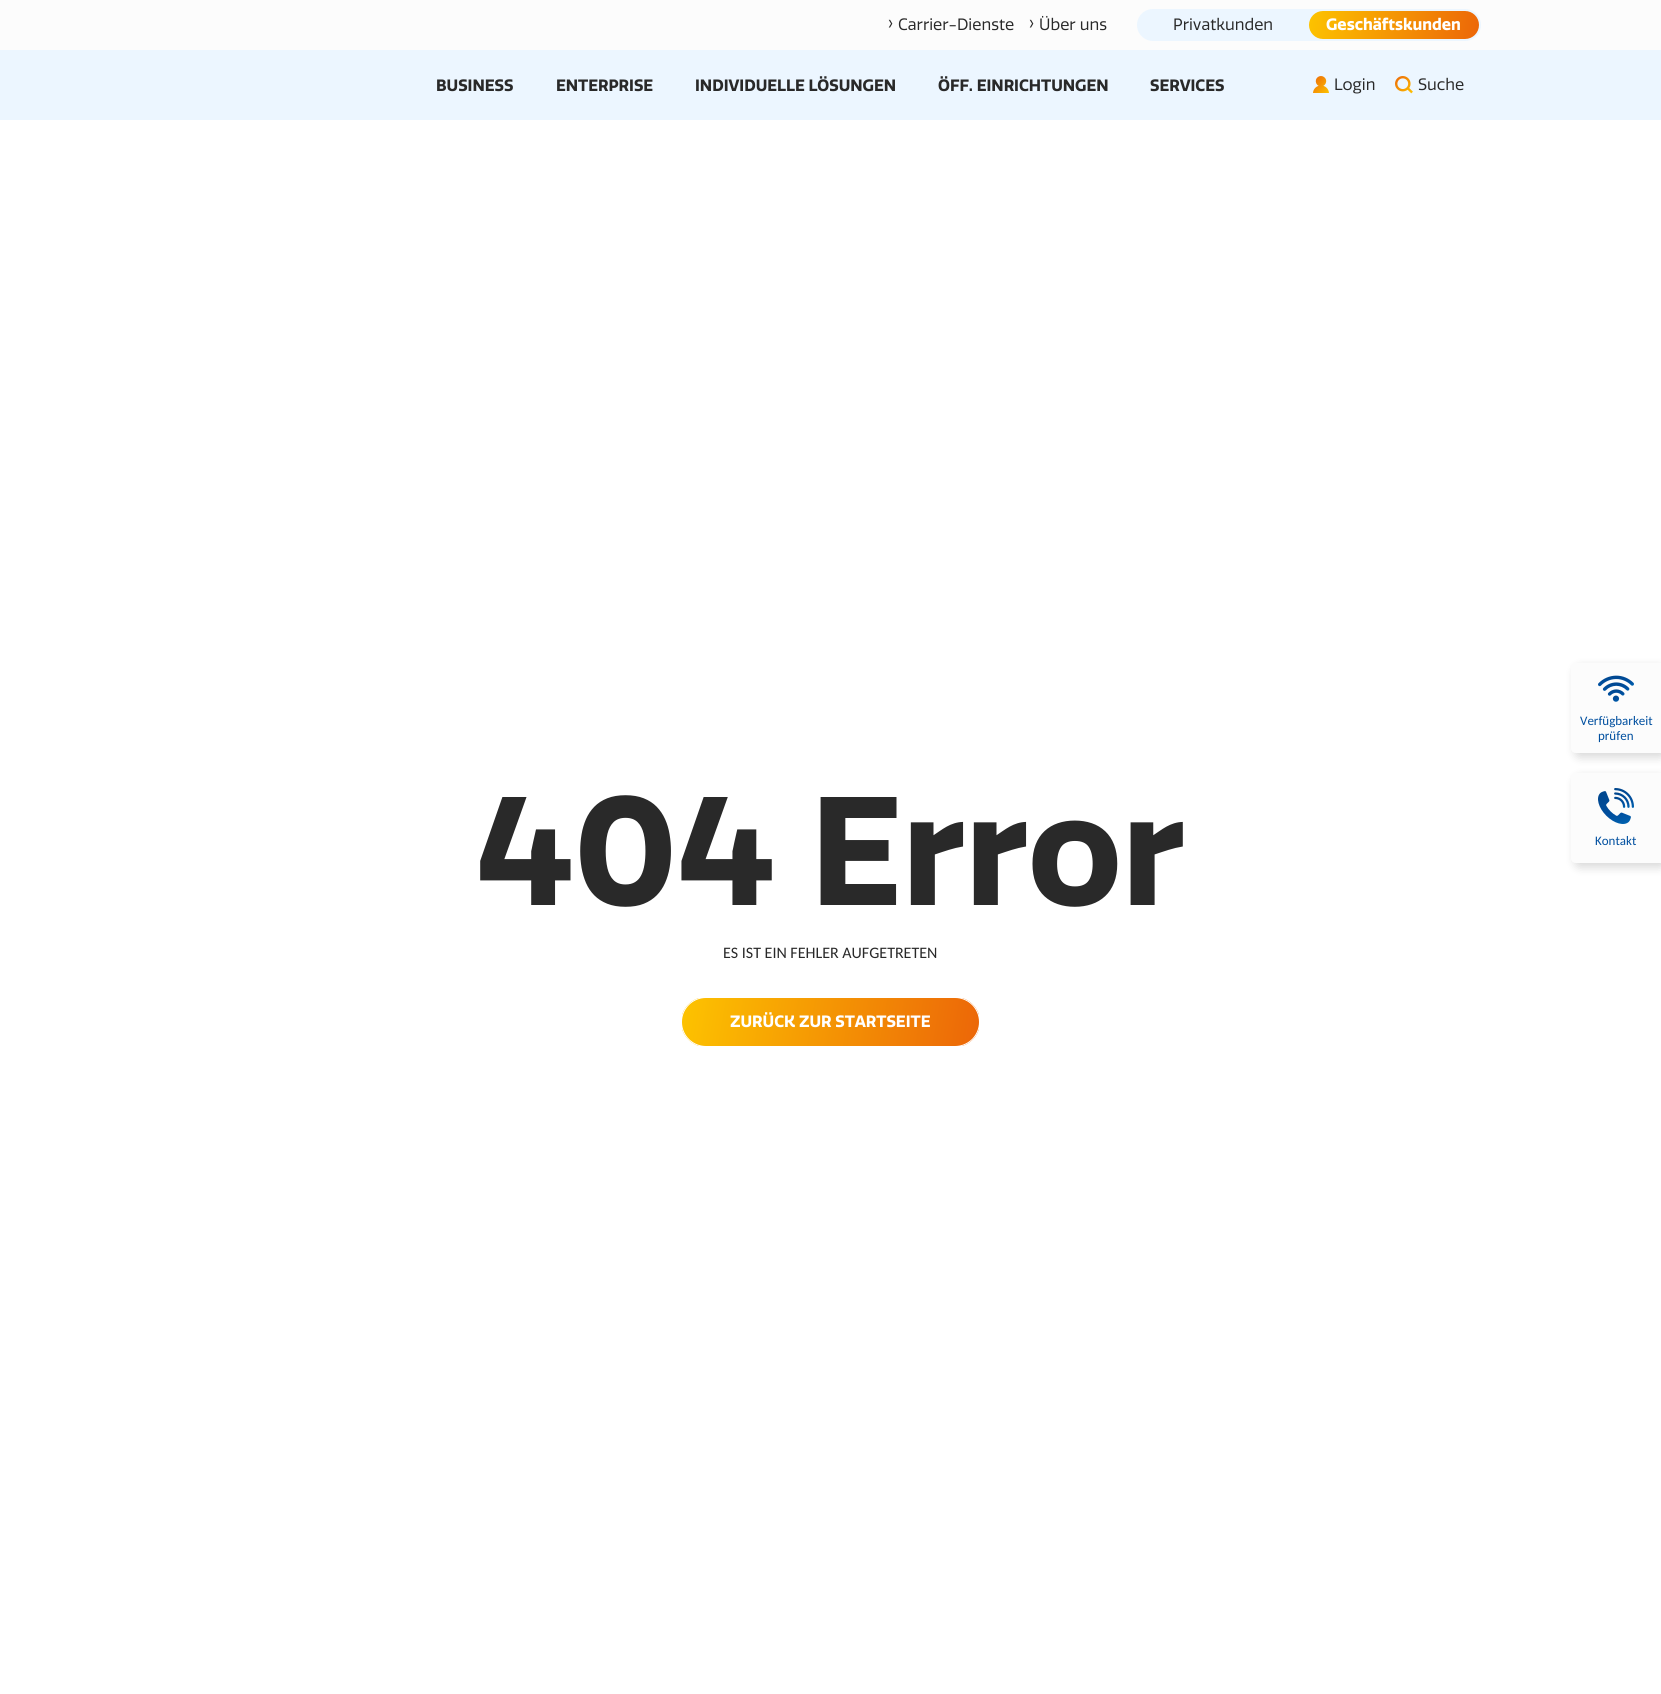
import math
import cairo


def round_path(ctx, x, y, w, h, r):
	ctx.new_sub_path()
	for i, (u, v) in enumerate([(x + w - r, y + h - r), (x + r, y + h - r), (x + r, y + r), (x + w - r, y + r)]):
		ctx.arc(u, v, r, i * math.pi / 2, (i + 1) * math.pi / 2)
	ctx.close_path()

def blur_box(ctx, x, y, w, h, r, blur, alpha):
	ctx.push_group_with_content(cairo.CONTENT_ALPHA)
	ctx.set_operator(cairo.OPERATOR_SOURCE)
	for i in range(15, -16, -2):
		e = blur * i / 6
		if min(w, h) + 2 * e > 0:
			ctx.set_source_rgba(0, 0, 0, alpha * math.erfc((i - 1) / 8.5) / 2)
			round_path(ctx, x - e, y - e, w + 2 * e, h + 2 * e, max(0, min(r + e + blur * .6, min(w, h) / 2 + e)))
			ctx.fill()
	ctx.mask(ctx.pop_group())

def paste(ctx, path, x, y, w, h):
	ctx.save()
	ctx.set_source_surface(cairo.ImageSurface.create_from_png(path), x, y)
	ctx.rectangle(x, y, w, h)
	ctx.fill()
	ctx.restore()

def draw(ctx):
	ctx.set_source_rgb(1, 1, 1)
	ctx.paint()
	ctx.set_source_rgb(0.988, 0.988, 0.988)
	ctx.rectangle(0, 0, 1661, 50)
	ctx.fill()
	ctx.select_font_face('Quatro')
	ctx.set_font_size(16)
	ctx.set_source_rgb(0.161, 0.161, 0.161)
	for x, y, s in [
		(888, 28, '›'),
		(898, 30, 'Carrier-Dienste'),
		(1029, 28, '›'),
		(1039, 30, 'Über uns'),
	]:
		ctx.move_to(x, y)
		ctx.show_text(s)
	ctx.set_source_rgb(0.922, 0.961, 1)
	round_path(ctx, 1137, 9, 344, 32, 16)
	ctx.fill()
	ctx.set_source_rgb(0.161, 0.161, 0.161)
	ctx.move_to(1173, 30)
	ctx.show_text('Privatkunden')
	gradient = cairo.LinearGradient(1479, 40, 1309, 10)
	gradient.add_color_stop_rgba(0, 0.925, 0.4, 0.031, 1)
	gradient.add_color_stop_rgba(1, 0.992, 0.765, 0, 1)
	ctx.set_source(gradient)
	round_path(ctx, 1309, 11, 170, 28, 14)
	ctx.fill()
	ctx.select_font_face('Quatro', cairo.FONT_SLANT_NORMAL, cairo.FONT_WEIGHT_BOLD)
	ctx.set_source_rgb(1, 1, 1)
	ctx.move_to(1326, 30)
	ctx.show_text('Geschäftskunden')
	ctx.set_source_rgb(0.922, 0.961, 1)
	ctx.rectangle(0, 50, 1661, 70)
	ctx.fill()
	ctx.set_source_rgb(0.161, 0.161, 0.161)
	for x, y, s in [
		(436, 91, 'BUSINESS'),
		(556, 91, 'ENTERPRISE'),
		(695, 91, 'INDIVIDUELLE LÖSUNGEN'),
		(938, 91, 'ÖFF. EINRICHTUNGEN'),
		(1150, 91, 'SERVICES'),
	]:
		ctx.move_to(x, y)
		ctx.show_text(s)
	paste(ctx, 'media/1.png', 1313, 76, 16, 17)
	ctx.select_font_face('Quatro')
	ctx.move_to(1334, 90)
	ctx.show_text('Login')
	paste(ctx, 'media/2.png', 1395, 76, 18, 18)
	ctx.move_to(1418, 90)
	ctx.show_text('Suche')
	ctx.set_source_rgb(0, 0, 0)
	blur_box(ctx, 1575, 667, 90, 90, 5, 5, 0.16)
	ctx.set_source_rgb(0.988, 0.988, 0.988)
	ctx.new_path()
	ctx.move_to(1576, 663)
	ctx.line_to(1661, 663)
	ctx.line_to(1661, 753)
	ctx.line_to(1576, 753)
	ctx.curve_to(1573, 753, 1571, 751, 1571, 748)
	ctx.line_to(1571, 668)
	ctx.curve_to(1571, 665, 1573, 663, 1576, 663)
	ctx.close_path()
	ctx.fill()
	paste(ctx, 'media/3.png', 1598, 675, 36, 27)
	ctx.select_font_face('Carlito')
	ctx.set_font_size(13)
	ctx.set_source_rgb(0, 0.31, 0.624)
	ctx.move_to(1580, 725)
	ctx.show_text('Verfügbarkeit')
	ctx.move_to(1598, 740)
	ctx.show_text('prüfen')
	ctx.set_source_rgb(0, 0, 0)
	blur_box(ctx, 1575, 777, 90, 90, 5, 5, 0.16)
	ctx.set_source_rgb(0.988, 0.988, 0.988)
	ctx.new_path()
	ctx.move_to(1576, 773)
	ctx.line_to(1661, 773)
	ctx.line_to(1661, 863)
	ctx.line_to(1576, 863)
	ctx.curve_to(1573, 863, 1571, 861, 1571, 858)
	ctx.line_to(1571, 778)
	ctx.curve_to(1571, 775, 1573, 773, 1576, 773)
	ctx.close_path()
	ctx.fill()
	paste(ctx, 'media/4.png', 1598, 788, 36, 36)
	ctx.set_source_rgb(0, 0.31, 0.624)
	ctx.move_to(1595, 845)
	ctx.show_text('Kontakt')
	ctx.select_font_face('Quatro', cairo.FONT_SLANT_NORMAL, cairo.FONT_WEIGHT_BOLD)
	ctx.set_font_size(150)
	ctx.set_source_rgb(0.161, 0.161, 0.161)
	ctx.move_to(476, 905)
	ctx.show_text('404 Error')
	ctx.select_font_face('Carlito')
	ctx.set_font_size(16)
	ctx.move_to(723, 958)
	ctx.show_text('ES IST EIN FEHLER AUFGETRETEN')
	ctx.save()
	round_path(ctx, 681, 997, 299, 50, 25)
	ctx.clip()
	gradient = cairo.LinearGradient(979, 1048, 682, 996)
	gradient.add_color_stop_rgba(0, 0.925, 0.4, 0.031, 1)
	gradient.add_color_stop_rgba(1, 0.992, 0.765, 0, 1)
	ctx.set_source(gradient)
	ctx.rectangle(682, 998, 297, 48)
	ctx.fill()
	ctx.restore()
	round_path(ctx, 681.5, 997.5, 298, 49, 24.5)
	ctx.set_source_rgb(1, 1, 1)
	ctx.set_line_width(1)
	ctx.stroke()
	ctx.select_font_face('Quatro', cairo.FONT_SLANT_NORMAL, cairo.FONT_WEIGHT_BOLD)
	ctx.move_to(730, 1027)
	ctx.show_text('ZURÜCK ZUR STARTSEITE')


surface = cairo.ImageSurface(cairo.FORMAT_RGB24, 1661, 1694)
ctx = cairo.Context(surface)
options = cairo.FontOptions()
options.set_hint_metrics(cairo.HINT_METRICS_OFF)
options.set_hint_style(cairo.HINT_STYLE_NONE)
ctx.set_font_options(options)
ctx.set_miter_limit(4)
draw(ctx)
surface.write_to_png('image.png')
